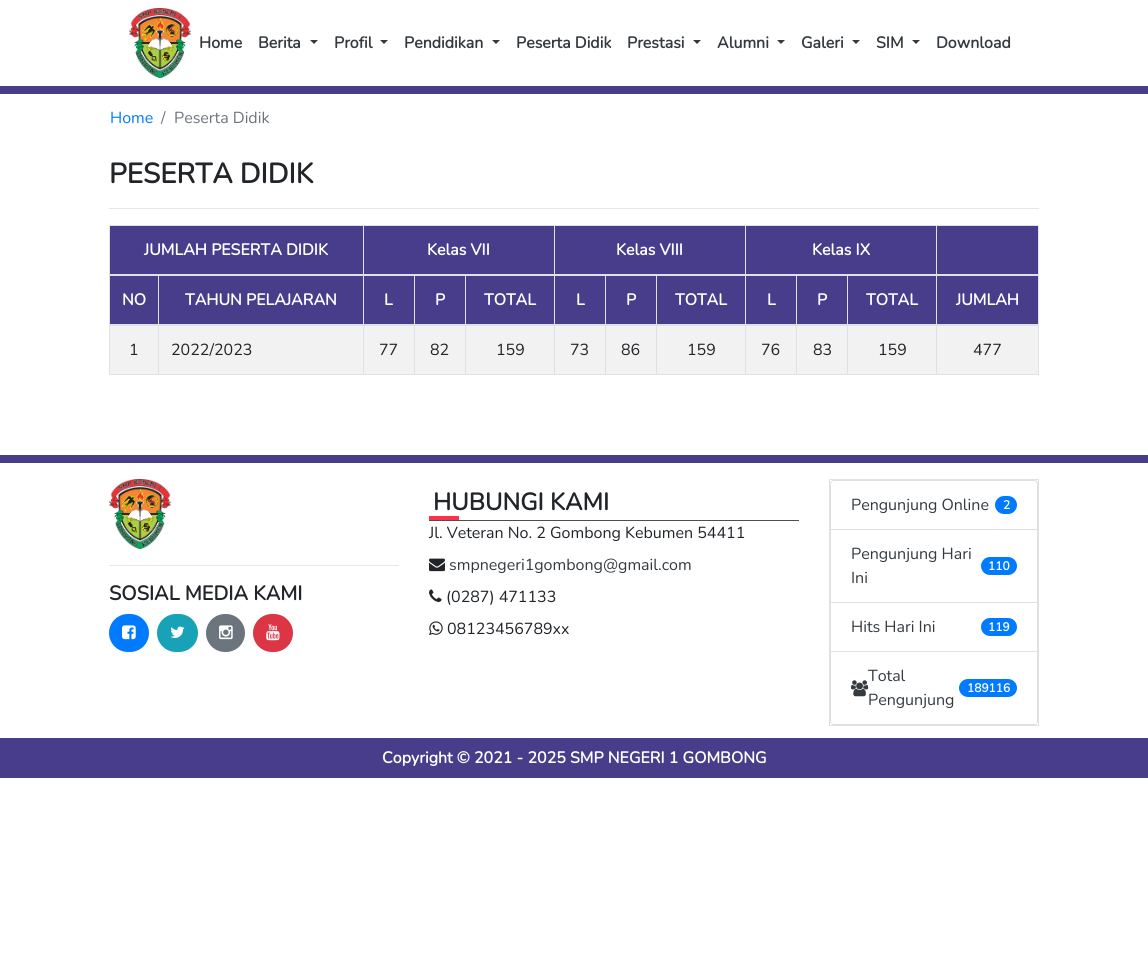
import math
import cairo


def round_path(ctx, x, y, w, h, r):
	ctx.new_sub_path()
	for i, (u, v) in enumerate([(x + w - r, y + h - r), (x + r, y + h - r), (x + r, y + r), (x + w - r, y + r)]):
		ctx.arc(u, v, r, i * math.pi / 2, (i + 1) * math.pi / 2)
	ctx.close_path()

def paste(ctx, path, x, y, w, h):
	ctx.save()
	ctx.set_source_surface(cairo.ImageSurface.create_from_png(path), x, y)
	ctx.rectangle(x, y, w, h)
	ctx.fill()
	ctx.restore()

def draw(ctx):
	ctx.set_source_rgb(1, 1, 1)
	ctx.paint()
	paste(ctx, 'media/1.png', 129, 8, 62, 70)
	ctx.select_font_face('Nunito', cairo.FONT_SLANT_NORMAL, cairo.FONT_WEIGHT_BOLD)
	ctx.set_font_size(16)
	ctx.set_source_rgb(0.204, 0.227, 0.251)
	ctx.move_to(199, 48)
	ctx.show_text('Home')
	ctx.move_to(258, 48)
	ctx.show_text('Berita')
	ctx.new_path()
	ctx.move_to(310, 40)
	ctx.line_to(318, 40)
	ctx.line_to(314, 44)
	ctx.close_path()
	ctx.fill()
	ctx.move_to(334, 48)
	ctx.show_text('Profil')
	ctx.new_path()
	ctx.move_to(380, 40)
	ctx.line_to(388, 40)
	ctx.line_to(384, 44)
	ctx.close_path()
	ctx.fill()
	ctx.move_to(404, 48)
	ctx.show_text('Pendidikan')
	ctx.new_path()
	ctx.move_to(492, 40)
	ctx.line_to(500, 40)
	ctx.line_to(496, 44)
	ctx.close_path()
	ctx.fill()
	ctx.move_to(516, 48)
	ctx.show_text('Peserta Didik')
	ctx.move_to(627, 48)
	ctx.show_text('Prestasi')
	ctx.new_path()
	ctx.move_to(693, 40)
	ctx.line_to(701, 40)
	ctx.line_to(697, 44)
	ctx.close_path()
	ctx.fill()
	ctx.move_to(717, 48)
	ctx.show_text('Alumni')
	ctx.new_path()
	ctx.move_to(777, 40)
	ctx.line_to(785, 40)
	ctx.line_to(781, 44)
	ctx.close_path()
	ctx.fill()
	ctx.move_to(801, 48)
	ctx.show_text('Galeri')
	ctx.new_path()
	ctx.move_to(852, 40)
	ctx.line_to(860, 40)
	ctx.line_to(856, 44)
	ctx.close_path()
	ctx.fill()
	ctx.move_to(876, 48)
	ctx.show_text('SIM')
	ctx.new_path()
	ctx.move_to(912, 40)
	ctx.line_to(920, 40)
	ctx.line_to(916, 44)
	ctx.close_path()
	ctx.fill()
	ctx.move_to(936, 48)
	ctx.show_text('Download')
	ctx.set_source_rgb(0.282, 0.239, 0.545)
	ctx.rectangle(0, 86, 1148, 8)
	ctx.fill()
	ctx.select_font_face('Nunito ExtraLight')
	ctx.set_source_rgb(0, 0.482, 1)
	ctx.move_to(110, 123)
	ctx.show_text('Home')
	ctx.set_source_rgb(0.424, 0.459, 0.49)
	ctx.move_to(161, 123)
	ctx.show_text('/')
	ctx.move_to(174, 123)
	ctx.show_text('Peserta Didik')
	ctx.select_font_face('Nunito', cairo.FONT_SLANT_NORMAL, cairo.FONT_WEIGHT_BOLD)
	ctx.set_font_size(28)
	ctx.set_source_rgb(0.129, 0.145, 0.161)
	ctx.move_to(109, 183)
	ctx.show_text('PESERTA DIDIK')
	ctx.set_source_rgb(0.902, 0.902, 0.902)
	ctx.rectangle(109, 208, 930, 1)
	ctx.fill()
	ctx.set_source_rgb(0.282, 0.239, 0.545)
	ctx.rectangle(110, 226, 928, 98)
	ctx.fill()
	ctx.set_source_rgb(0.871, 0.886, 0.902)
	ctx.rectangle(936, 225, 103, 1)
	ctx.rectangle(1038, 274, 1, 101)
	ctx.rectangle(1038, 225, 1, 50)
	ctx.fill()
	ctx.set_source_rgb(0.949, 0.949, 0.949)
	ctx.rectangle(110, 326, 928, 48)
	ctx.fill()
	ctx.set_source_rgb(0.871, 0.886, 0.902)
	ctx.rectangle(936, 374, 103, 1)
	ctx.rectangle(936, 274, 1, 101)
	ctx.rectangle(936, 225, 1, 50)
	ctx.rectangle(745, 225, 192, 1)
	ctx.rectangle(847, 374, 90, 1)
	ctx.rectangle(847, 274, 1, 101)
	ctx.rectangle(796, 374, 52, 1)
	ctx.rectangle(796, 274, 1, 101)
	ctx.rectangle(745, 374, 52, 1)
	ctx.rectangle(745, 274, 1, 101)
	ctx.rectangle(745, 225, 1, 50)
	ctx.rectangle(554, 225, 192, 1)
	ctx.rectangle(656, 374, 90, 1)
	ctx.rectangle(656, 274, 1, 101)
	ctx.rectangle(605, 374, 52, 1)
	ctx.rectangle(605, 274, 1, 101)
	ctx.rectangle(554, 374, 52, 1)
	ctx.rectangle(554, 274, 1, 101)
	ctx.rectangle(554, 225, 1, 50)
	ctx.rectangle(363, 225, 192, 1)
	ctx.rectangle(465, 374, 90, 1)
	ctx.rectangle(465, 274, 1, 101)
	ctx.rectangle(414, 374, 52, 1)
	ctx.rectangle(414, 274, 1, 101)
	ctx.rectangle(363, 374, 52, 1)
	ctx.rectangle(363, 274, 1, 101)
	ctx.rectangle(363, 225, 1, 50)
	ctx.rectangle(109, 225, 255, 1)
	ctx.rectangle(158, 374, 206, 1)
	ctx.rectangle(158, 274, 1, 101)
	ctx.rectangle(109, 374, 50, 1)
	ctx.rectangle(109, 274, 1, 101)
	ctx.rectangle(109, 225, 1, 50)
	ctx.rectangle(109, 274, 930, 2)
	ctx.fill()
	ctx.set_font_size(16)
	ctx.set_source_rgb(1, 1, 1)
	for x, y, s in [
		(144, 255, 'JUMLAH PESERTA DIDIK'),
		(427, 255, 'Kelas VII'),
		(616, 255, 'Kelas VIII'),
		(812, 255, 'Kelas IX'),
		(122, 305, 'NO'),
		(185, 305, 'TAHUN PELAJARAN'),
		(384, 305, 'L'),
		(435, 305, 'P'),
		(484, 305, 'TOTAL'),
		(576, 305, 'L'),
		(626, 305, 'P'),
		(675, 305, 'TOTAL'),
		(767, 305, 'L'),
		(817, 305, 'P'),
		(866, 305, 'TOTAL'),
	]:
		ctx.move_to(x, y)
		ctx.show_text(s)
	ctx.set_source_rgb(0.871, 0.886, 0.902)
	ctx.rectangle(109, 324, 930, 2)
	ctx.fill()
	ctx.set_source_rgb(1, 1, 1)
	ctx.move_to(956, 305)
	ctx.show_text('JUMLAH')
	ctx.select_font_face('Nunito ExtraLight')
	ctx.set_source_rgb(0.129, 0.145, 0.161)
	for x, y, s in [
		(129, 355, '1'),
		(171, 355, '2022/2023'),
		(379, 355, '77'),
		(430, 355, '82'),
		(496, 355, '159'),
		(570, 355, '73'),
		(621, 355, '86'),
		(687, 355, '159'),
		(761, 355, '76'),
		(813, 355, '83'),
		(878, 355, '159'),
		(973, 355, '477'),
	]:
		ctx.move_to(x, y)
		ctx.show_text(s)
	ctx.set_source_rgb(0.282, 0.239, 0.545)
	ctx.rectangle(0, 455, 1148, 8)
	ctx.fill()
	paste(ctx, 'media/2.png', 109, 479, 62, 70)
	ctx.set_source_rgb(0.902, 0.902, 0.902)
	ctx.rectangle(109, 565, 290, 1)
	ctx.fill()
	ctx.select_font_face('Nunito', cairo.FONT_SLANT_NORMAL, cairo.FONT_WEIGHT_BOLD)
	ctx.set_font_size(20)
	ctx.set_source_rgb(0.129, 0.145, 0.161)
	ctx.move_to(109, 600)
	ctx.show_text('SOSIAL MEDIA KAMI')
	ctx.set_source_rgb(0, 0.482, 1)
	round_path(ctx, 109, 614, 40, 38, 19)
	ctx.fill()
	paste(ctx, 'media/3.png', 122, 625, 14, 15)
	ctx.set_source_rgb(0.09, 0.635, 0.722)
	round_path(ctx, 157, 614, 41, 38, 19)
	ctx.fill()
	paste(ctx, 'media/4.png', 170, 626, 15, 12)
	ctx.set_source_rgb(0.424, 0.459, 0.49)
	round_path(ctx, 206, 614, 39, 38, 19)
	ctx.fill()
	paste(ctx, 'media/5.png', 219, 625, 14, 15)
	ctx.set_source_rgb(0.863, 0.208, 0.271)
	round_path(ctx, 253, 614, 40, 38, 19)
	ctx.fill()
	paste(ctx, 'media/6.png', 266, 624, 14, 17)
	ctx.set_source_rgb(0.306, 0.306, 0.306)
	ctx.rectangle(429, 520, 370, 1)
	ctx.fill()
	ctx.set_font_size(24)
	ctx.set_source_rgb(0.129, 0.145, 0.161)
	ctx.move_to(433, 510)
	ctx.show_text('HUBUNGI KAMI')
	ctx.set_source_rgb(1, 0.188, 0.302)
	ctx.rectangle(429, 516, 30, 4)
	ctx.fill()
	ctx.select_font_face('Nunito ExtraLight')
	ctx.set_font_size(16)
	ctx.set_source_rgb(0.129, 0.145, 0.161)
	ctx.move_to(429, 538)
	ctx.show_text('Jl. Veteran No. 2 Gombong Kebumen 54411')
	paste(ctx, 'media/7.png', 429, 558, 16, 14)
	ctx.set_source_rgb(0.204, 0.227, 0.251)
	ctx.move_to(449, 570)
	ctx.show_text('smpnegeri1gombong@gmail.com')
	paste(ctx, 'media/8.png', 429, 589, 13, 13)
	ctx.set_source_rgb(0.129, 0.145, 0.161)
	ctx.move_to(446, 602)
	ctx.show_text('(0287) 471133')
	paste(ctx, 'media/9.png', 429, 621, 14, 15)
	ctx.move_to(447, 634)
	ctx.show_text('08123456789xx')
	ctx.rectangle(829.5, 479.5, 209, 246)
	ctx.set_source_rgb(0.871, 0.886, 0.902)
	ctx.set_line_width(1)
	ctx.stroke()
	ctx.new_path()
	ctx.move_to(834, 480.5)
	ctx.line_to(1034, 480.5)
	ctx.curve_to(1036, 480.5, 1037.5, 482, 1037.5, 484)
	ctx.line_to(1037.5, 529.5)
	ctx.line_to(830.5, 529.5)
	ctx.line_to(830.5, 484)
	ctx.curve_to(830.5, 482, 832, 480.5, 834, 480.5)
	ctx.close_path()
	ctx.set_source_rgb(0.875, 0.875, 0.875)
	ctx.stroke()
	ctx.set_source_rgb(0.204, 0.227, 0.251)
	ctx.move_to(851, 510)
	ctx.show_text('Pengunjung Online')
	ctx.set_source_rgb(0, 0.482, 1)
	round_path(ctx, 995, 496, 22, 18, 9)
	ctx.fill()
	ctx.select_font_face('Nunito', cairo.FONT_SLANT_NORMAL, cairo.FONT_WEIGHT_BOLD)
	ctx.set_font_size(12)
	ctx.set_source_rgb(1, 1, 1)
	ctx.move_to(1003, 509)
	ctx.show_text('2')
	ctx.set_source_rgb(0.875, 0.875, 0.875)
	ctx.new_path()
	ctx.move_to(1038, 530)
	ctx.line_to(1038, 603)
	ctx.line_to(1037, 602)
	ctx.line_to(1037, 530)
	ctx.close_path()
	ctx.fill()
	ctx.set_source_rgba(0, 0, 0, 0.12)
	ctx.new_path()
	ctx.move_to(1038, 603)
	ctx.line_to(830, 603)
	ctx.line_to(831, 602)
	ctx.line_to(1037, 602)
	ctx.close_path()
	ctx.fill()
	ctx.new_path()
	ctx.move_to(830, 603)
	ctx.line_to(830, 530)
	ctx.line_to(831, 530)
	ctx.line_to(831, 602)
	ctx.close_path()
	ctx.fill()
	ctx.select_font_face('Nunito ExtraLight')
	ctx.set_font_size(16)
	ctx.set_source_rgb(0.204, 0.227, 0.251)
	ctx.move_to(851, 559)
	ctx.show_text('Pengunjung Hari')
	ctx.set_source_rgb(0, 0.482, 1)
	round_path(ctx, 981, 557, 36, 18, 9)
	ctx.fill()
	ctx.select_font_face('Nunito', cairo.FONT_SLANT_NORMAL, cairo.FONT_WEIGHT_BOLD)
	ctx.set_font_size(12)
	ctx.set_source_rgb(1, 1, 1)
	ctx.move_to(988, 570)
	ctx.show_text('110')
	ctx.select_font_face('Nunito ExtraLight')
	ctx.set_font_size(16)
	ctx.set_source_rgb(0.204, 0.227, 0.251)
	ctx.move_to(851, 583)
	ctx.show_text('Ini')
	ctx.set_source_rgb(0.875, 0.875, 0.875)
	ctx.new_path()
	ctx.move_to(1038, 603)
	ctx.line_to(1038, 652)
	ctx.line_to(1037, 651)
	ctx.line_to(1037, 603)
	ctx.close_path()
	ctx.fill()
	ctx.set_source_rgba(0, 0, 0, 0.12)
	ctx.new_path()
	ctx.move_to(1038, 652)
	ctx.line_to(830, 652)
	ctx.line_to(831, 651)
	ctx.line_to(1037, 651)
	ctx.close_path()
	ctx.fill()
	ctx.new_path()
	ctx.move_to(830, 652)
	ctx.line_to(830, 603)
	ctx.line_to(831, 603)
	ctx.line_to(831, 651)
	ctx.close_path()
	ctx.fill()
	ctx.set_source_rgb(0.204, 0.227, 0.251)
	ctx.move_to(851, 632)
	ctx.show_text('Hits Hari Ini')
	ctx.set_source_rgb(0, 0.482, 1)
	round_path(ctx, 981, 618, 36, 18, 9)
	ctx.fill()
	ctx.select_font_face('Nunito', cairo.FONT_SLANT_NORMAL, cairo.FONT_WEIGHT_BOLD)
	ctx.set_font_size(12)
	ctx.set_source_rgb(1, 1, 1)
	ctx.move_to(988, 631)
	ctx.show_text('119')
	ctx.set_source_rgb(0.875, 0.875, 0.875)
	ctx.set_fill_rule(cairo.FILL_RULE_EVEN_ODD)
	ctx.new_path()
	ctx.move_to(830, 652)
	ctx.line_to(1038, 652)
	ctx.line_to(1038, 721)
	ctx.curve_to(1038, 723, 1036, 725, 1034, 725)
	ctx.line_to(834, 725)
	ctx.curve_to(832, 725, 830, 723, 830, 721)
	ctx.close_path()
	ctx.move_to(831, 652)
	ctx.line_to(1037, 652)
	ctx.line_to(1037, 721)
	ctx.curve_to(1037, 723, 1036, 724, 1034, 724)
	ctx.line_to(834, 724)
	ctx.curve_to(832, 724, 831, 723, 831, 721)
	ctx.close_path()
	ctx.fill()
	ctx.select_font_face('Nunito ExtraLight')
	ctx.set_font_size(16)
	ctx.set_source_rgb(0.204, 0.227, 0.251)
	ctx.move_to(868, 681)
	ctx.show_text('Total')
	paste(ctx, 'media/10.png', 851, 680, 18, 17)
	ctx.set_source_rgb(0, 0.482, 1)
	round_path(ctx, 959, 679, 58, 18, 9)
	ctx.fill()
	ctx.select_font_face('Nunito', cairo.FONT_SLANT_NORMAL, cairo.FONT_WEIGHT_BOLD)
	ctx.set_font_size(12)
	ctx.set_source_rgb(1, 1, 1)
	ctx.move_to(967, 692)
	ctx.show_text('189116')
	ctx.select_font_face('Nunito ExtraLight')
	ctx.set_font_size(16)
	ctx.set_source_rgb(0.204, 0.227, 0.251)
	ctx.move_to(868, 705)
	ctx.show_text('Pengunjung')
	ctx.set_source_rgb(0.282, 0.239, 0.545)
	ctx.rectangle(0, 738, 1148, 40)
	ctx.fill()
	ctx.select_font_face('Nunito', cairo.FONT_SLANT_NORMAL, cairo.FONT_WEIGHT_BOLD)
	ctx.set_source_rgb(1, 1, 1)
	ctx.move_to(382, 763)
	ctx.show_text('Copyright © 2021 - 2025 SMP NEGERI 1 GOMBONG')


surface = cairo.ImageSurface(cairo.FORMAT_RGB24, 1148, 962)
ctx = cairo.Context(surface)
options = cairo.FontOptions()
options.set_hint_metrics(cairo.HINT_METRICS_OFF)
options.set_hint_style(cairo.HINT_STYLE_NONE)
ctx.set_font_options(options)
ctx.set_miter_limit(4)
draw(ctx)
surface.write_to_png('image.png')
